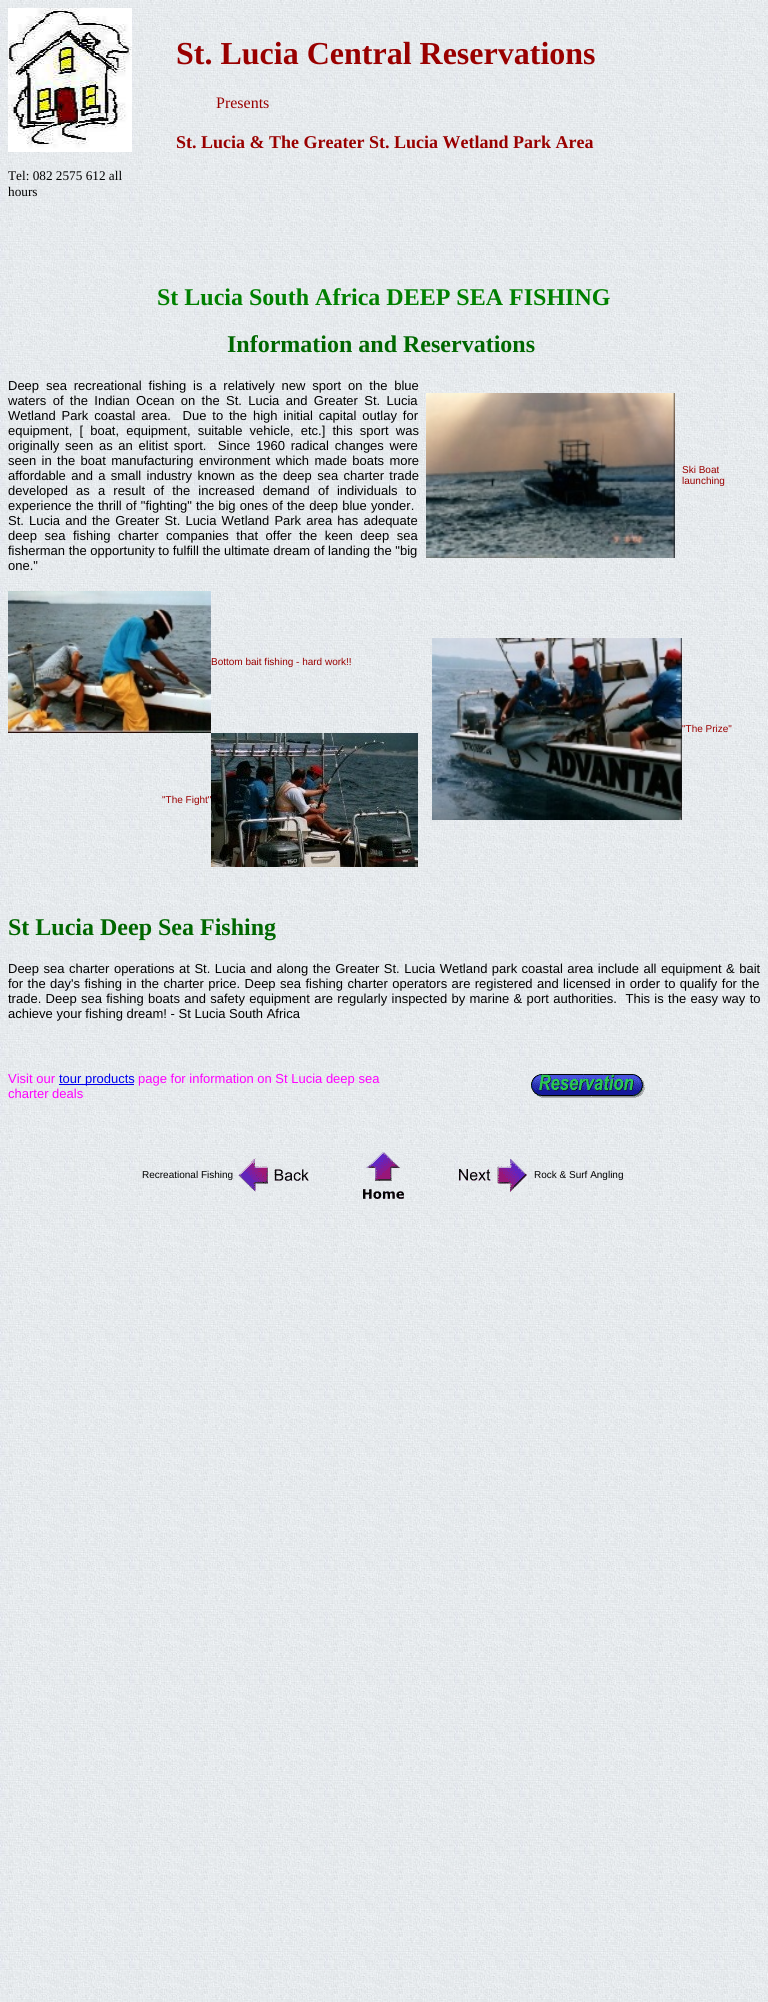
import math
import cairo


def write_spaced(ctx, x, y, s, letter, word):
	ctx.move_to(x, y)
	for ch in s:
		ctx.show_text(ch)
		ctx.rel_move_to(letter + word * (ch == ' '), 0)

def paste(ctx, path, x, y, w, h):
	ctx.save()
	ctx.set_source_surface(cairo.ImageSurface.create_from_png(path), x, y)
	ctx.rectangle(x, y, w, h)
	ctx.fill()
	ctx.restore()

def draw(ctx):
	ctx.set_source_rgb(1, 1, 1)
	ctx.paint()
	paste(ctx, 'media/1.png', 0, 0, 768, 2002)
	ctx.select_font_face('Liberation Serif', cairo.FONT_SLANT_NORMAL, cairo.FONT_WEIGHT_BOLD)
	ctx.set_font_size(32)
	ctx.set_source_rgb(0.6, 0, 0)
	ctx.move_to(176, 64)
	ctx.show_text('St. Lucia Central Reservations')
	ctx.select_font_face('Liberation Serif')
	ctx.set_font_size(16)
	ctx.move_to(216, 108)
	ctx.show_text('Presents')
	ctx.select_font_face('Liberation Serif', cairo.FONT_SLANT_NORMAL, cairo.FONT_WEIGHT_BOLD)
	ctx.set_font_size(18)
	ctx.move_to(176, 148)
	ctx.show_text('St. Lucia & The Greater St. Lucia Wetland Park Area')
	paste(ctx, 'media/2.png', 8, 8, 124, 144)
	ctx.select_font_face('Liberation Serif')
	ctx.set_font_size(13.25)
	ctx.set_source_rgb(0, 0, 0)
	ctx.move_to(8, 180)
	ctx.show_text('Tel: 082 2575 612 all')
	ctx.move_to(8, 196)
	ctx.show_text('hours')
	ctx.select_font_face('Liberation Serif', cairo.FONT_SLANT_NORMAL, cairo.FONT_WEIGHT_BOLD)
	ctx.set_font_size(24)
	ctx.set_source_rgb(0, 0.502, 0)
	ctx.move_to(157, 305)
	ctx.show_text('St Lucia South Africa DEEP SEA FISHING')
	ctx.set_source_rgb(0, 0.404, 0)
	ctx.move_to(227, 352)
	ctx.show_text('Information and Reservations')
	ctx.select_font_face('Liberation Sans')
	ctx.set_font_size(13)
	ctx.set_source_rgb(0, 0, 0)
	write_spaced(ctx, 8, 390, 'Deep sea recreational fishing is a relatively new sport on the blue', 0, 3.25)
	write_spaced(ctx, 8, 405, 'waters of the Indian Ocean on the St. Lucia and Greater St. Lucia', 0, 2.75)
	write_spaced(ctx, 8, 420, 'Wetland Park coastal area.  Due to the high initial capital outlay for', 0, 2.25)
	write_spaced(ctx, 8, 435, 'equipment, [ boat, equipment, suitable vehicle, etc.] this sport was', 0, 3.5)
	write_spaced(ctx, 8, 450, 'originally seen as an elitist sport.  Since 1960 radical changes were', 0, 2.1)
	write_spaced(ctx, 8, 465, 'seen in the boat manufacturing environment which made boats more', 0, 1.75)
	write_spaced(ctx, 8, 480, 'affordable and a small industry known as the deep sea charter trade', 0, 1.75)
	write_spaced(ctx, 8, 495, 'developed as a result of the increased demand of individuals to', 0, 4.5)
	write_spaced(ctx, 8, 510, 'experience the thrill of "fighting" the big ones of the deep blue yonder.', 0, 0.5)
	write_spaced(ctx, 8, 525, 'St. Lucia and the Greater St. Lucia Wetland Park area has adequate', 0, 1.5)
	write_spaced(ctx, 8, 540, 'deep sea fishing charter companies that offer the keen deep sea', 0, 3.9)
	ctx.move_to(8, 555)
	ctx.show_text('fisherman the opportunity to fulfill the ultimate dream of landing the "big')
	ctx.move_to(8, 570)
	ctx.show_text('one."')
	paste(ctx, 'media/3.png', 426, 393, 249, 165)
	ctx.set_font_size(10)
	ctx.set_source_rgb(0.6, 0, 0)
	ctx.move_to(682, 473)
	ctx.show_text('Ski Boat')
	ctx.move_to(682, 484)
	ctx.show_text('launching')
	paste(ctx, 'media/4.png', 8, 591, 203, 142)
	ctx.move_to(211, 665)
	ctx.show_text('Bottom bait fishing - hard work!!')
	paste(ctx, 'media/5.png', 432, 638, 250, 182)
	ctx.move_to(682, 732)
	ctx.show_text('"The Prize"')
	ctx.move_to(162, 803)
	ctx.show_text('"The Fight"')
	paste(ctx, 'media/6.png', 211, 733, 207, 134)
	ctx.select_font_face('Liberation Serif', cairo.FONT_SLANT_NORMAL, cairo.FONT_WEIGHT_BOLD)
	ctx.set_font_size(24)
	ctx.set_source_rgb(0, 0.404, 0)
	ctx.move_to(8, 935)
	ctx.show_text('St Lucia Deep Sea Fishing')
	ctx.select_font_face('Liberation Sans')
	ctx.set_font_size(13)
	ctx.set_source_rgb(0, 0, 0)
	write_spaced(ctx, 8, 973, 'Deep sea charter operations at St. Lucia and along the Greater St. Lucia Wetland park coastal area include all equipment & bait', 0, 0.85)
	write_spaced(ctx, 8, 988, 'for the day\'s fishing in the charter price. Deep sea fishing charter operators are registered and licensed in order to qualify for the', 0, 0.8)
	write_spaced(ctx, 8, 1003, 'trade. Deep sea fishing boats and safety equipment are regularly inspected by marine & port authorities.  This is the easy way to', 0, 0.7)
	ctx.move_to(8, 1018)
	ctx.show_text('achieve your fishing dream! - St Lucia South Africa')
	ctx.set_source_rgb(1, 0, 1)
	ctx.move_to(8, 1083)
	ctx.show_text('Visit our')
	ctx.set_source_rgb(0, 0, 0.933)
	ctx.rectangle(59, 1084, 75, 1)
	ctx.fill()
	ctx.move_to(59, 1083)
	ctx.show_text('tour products')
	ctx.set_source_rgb(1, 0, 1)
	ctx.move_to(138, 1083)
	ctx.show_text('page for information on St Lucia deep sea')
	ctx.move_to(8, 1098)
	ctx.show_text('charter deals')
	paste(ctx, 'media/7.png', 529, 1072, 116, 28)
	ctx.set_font_size(10)
	ctx.set_source_rgb(0, 0, 0)
	ctx.move_to(142, 1178)
	ctx.show_text('Recreational Fishing')
	paste(ctx, 'media/8.png', 238, 1158, 71, 34)
	paste(ctx, 'media/9.png', 363, 1151, 41, 48)
	paste(ctx, 'media/10.png', 459, 1158, 68, 34)
	ctx.move_to(534, 1178)
	ctx.show_text('Rock & Surf Angling')


surface = cairo.ImageSurface(cairo.FORMAT_RGB24, 768, 2002)
ctx = cairo.Context(surface)
options = cairo.FontOptions()
options.set_hint_metrics(cairo.HINT_METRICS_OFF)
options.set_hint_style(cairo.HINT_STYLE_NONE)
ctx.set_font_options(options)
ctx.set_miter_limit(4)
draw(ctx)
surface.write_to_png('image.png')
